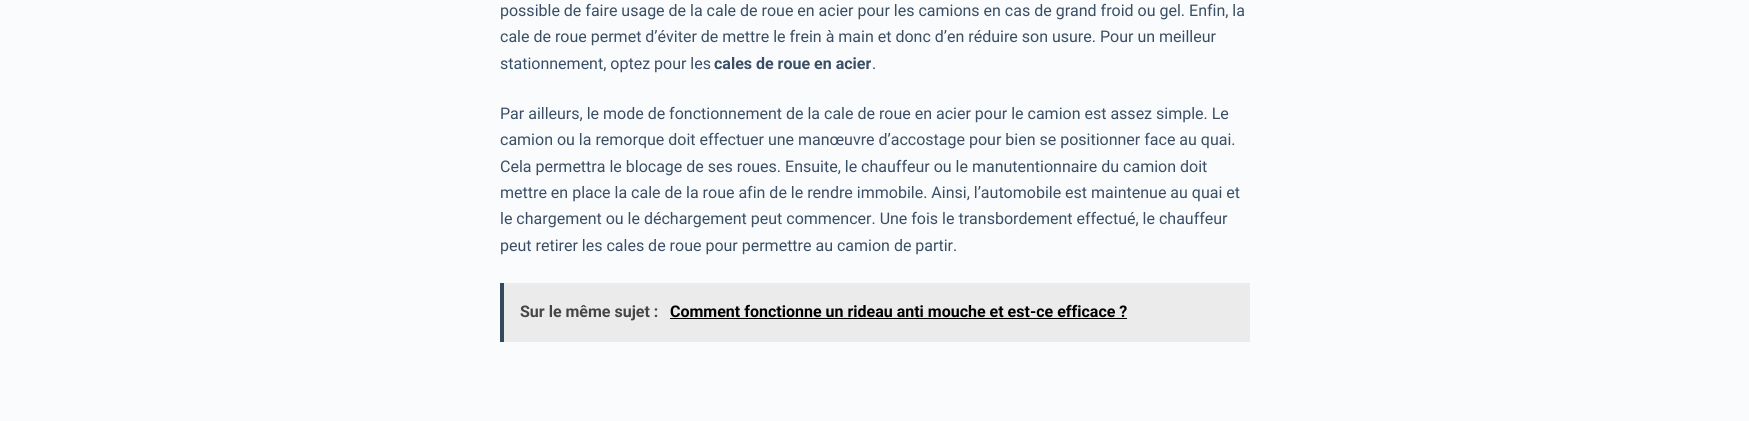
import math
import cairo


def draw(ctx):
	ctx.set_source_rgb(0.98, 0.984, 0.988)
	ctx.paint()
	ctx.select_font_face('Roboto')
	ctx.set_font_size(16)
	ctx.set_source_rgb(0.227, 0.31, 0.4)
	for x, y, s in [
		(500, 16, 'possible de faire usage de la cale de roue en acier pour les camions en cas de grand froid ou gel. Enfin, la'),
		(500, 42, 'cale de roue permet d’éviter de mettre le frein à main et donc d’en réduire son usure. Pour un meilleur'),
		(500, 69, 'stationnement, optez pour les'),
	]:
		ctx.move_to(x, y)
		ctx.show_text(s)
	ctx.select_font_face('Roboto', cairo.FONT_SLANT_NORMAL, cairo.FONT_WEIGHT_BOLD)
	ctx.move_to(714, 69)
	ctx.show_text('cales de roue en acier')
	ctx.select_font_face('Roboto')
	for x, y, s in [
		(872, 69, '.'),
		(500, 119, 'Par ailleurs, le mode de fonctionnement de la cale de roue en acier pour le camion est assez simple. Le'),
		(500, 145, 'camion ou la remorque doit effectuer une manœuvre d’accostage pour bien se positionner face au quai.'),
		(500, 172, 'Cela permettra le blocage de ses roues. Ensuite, le chauffeur ou le manutentionnaire du camion doit'),
		(500, 198, 'mettre en place la cale de la roue afin de le rendre immobile. Ainsi, l’automobile est maintenue au quai et'),
		(500, 224, 'le chargement ou le déchargement peut commencer. Une fois le transbordement effectué, le chauffeur'),
		(500, 251, 'peut retirer les cales de roue pour permettre au camion de partir.'),
	]:
		ctx.move_to(x, y)
		ctx.show_text(s)
	ctx.set_source_rgb(0.918, 0.918, 0.918)
	ctx.rectangle(504, 283, 746, 59)
	ctx.fill()
	ctx.set_source_rgb(0.204, 0.286, 0.369)
	ctx.rectangle(500, 283, 4, 59)
	ctx.fill()
	ctx.select_font_face('Roboto', cairo.FONT_SLANT_NORMAL, cairo.FONT_WEIGHT_BOLD)
	ctx.set_source_rgb(0.275, 0.275, 0.275)
	ctx.move_to(520, 317)
	ctx.show_text('Sur le même sujet :')
	ctx.set_source_rgb(0, 0, 0)
	ctx.move_to(670, 317)
	ctx.show_text('Comment fonctionne un rideau anti mouche et est-ce efficace ?')
	ctx.rectangle(670, 318, 457, 1)
	ctx.fill()


surface = cairo.ImageSurface(cairo.FORMAT_RGB24, 1749, 421)
ctx = cairo.Context(surface)
options = cairo.FontOptions()
options.set_hint_metrics(cairo.HINT_METRICS_OFF)
options.set_hint_style(cairo.HINT_STYLE_NONE)
ctx.set_font_options(options)
ctx.set_miter_limit(4)
draw(ctx)
surface.write_to_png('image.png')
